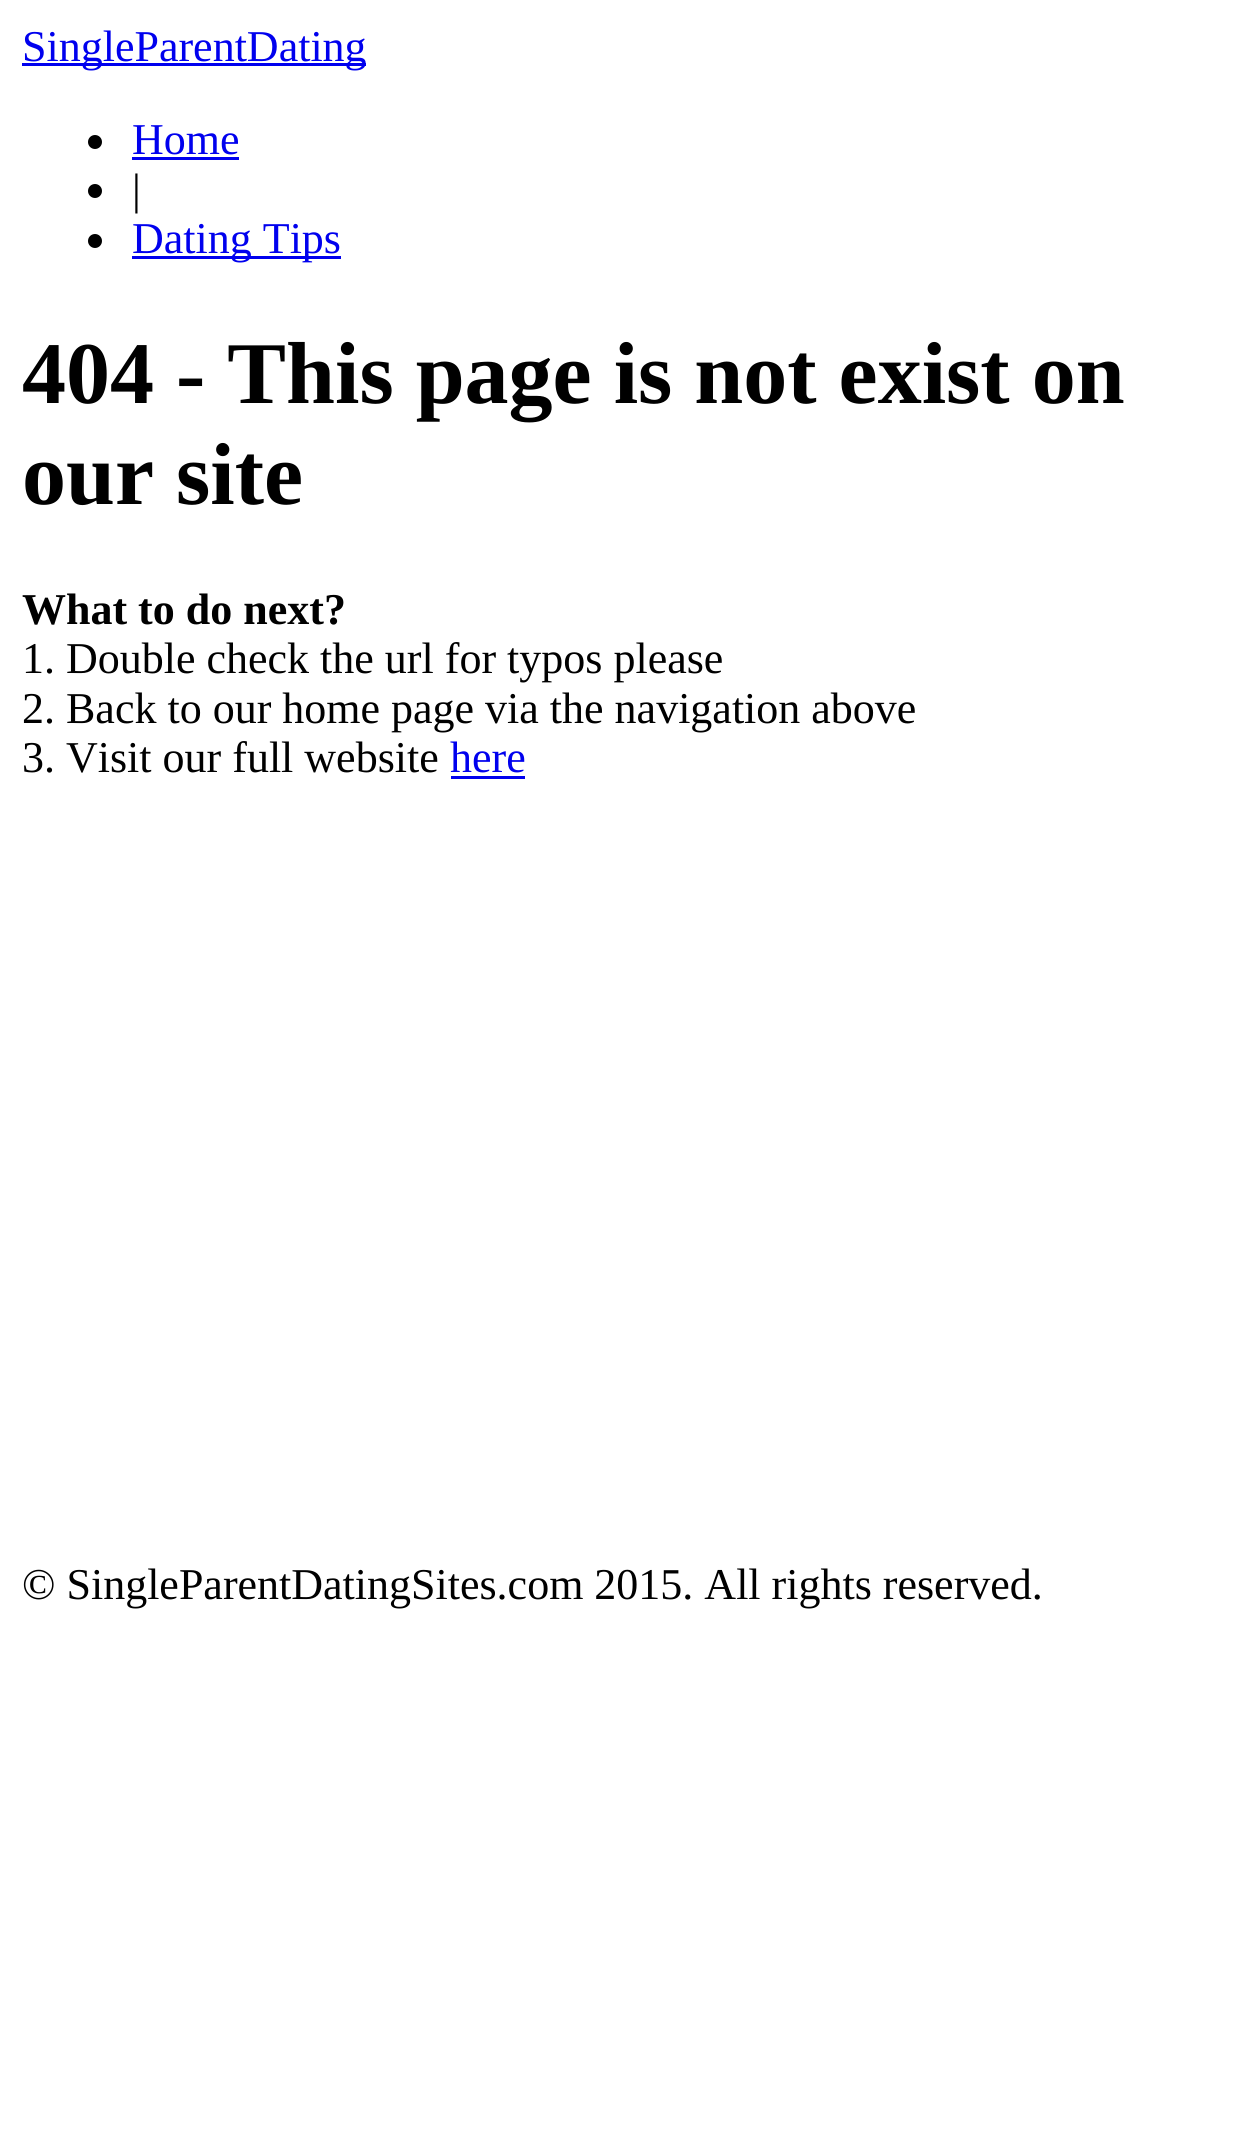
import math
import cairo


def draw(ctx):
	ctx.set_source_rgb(1, 1, 1)
	ctx.paint()
	ctx.set_source_rgb(0, 0, 0.933)
	ctx.rectangle(22, 63, 344, 3)
	ctx.fill()
	ctx.select_font_face('Liberation Serif')
	ctx.set_font_size(44)
	ctx.move_to(22, 61)
	ctx.show_text('SingleParentDating')
	ctx.set_source_rgb(0, 0, 0)
	ctx.new_path()
	ctx.arc(95, 142, 7, 0, 2 * math.pi)
	ctx.fill()
	ctx.set_source_rgb(0, 0, 0.933)
	ctx.move_to(132, 154)
	ctx.show_text('Home')
	ctx.rectangle(132, 157, 107, 3)
	ctx.fill()
	ctx.set_source_rgb(0, 0, 0)
	ctx.arc(95, 191, 7, 0, 2 * math.pi)
	ctx.fill()
	ctx.move_to(132, 204)
	ctx.show_text('|')
	ctx.new_path()
	ctx.arc(95, 241, 7, 0, 2 * math.pi)
	ctx.fill()
	ctx.set_source_rgb(0, 0, 0.933)
	ctx.rectangle(132, 256, 209, 3)
	ctx.fill()
	ctx.move_to(132, 253)
	ctx.show_text('Dating Tips')
	ctx.select_font_face('Liberation Serif', cairo.FONT_SLANT_NORMAL, cairo.FONT_WEIGHT_BOLD)
	ctx.set_font_size(88)
	ctx.set_source_rgb(0, 0, 0)
	ctx.move_to(22, 403)
	ctx.show_text('404 - This page is not exist on')
	ctx.move_to(22, 504)
	ctx.show_text('our site')
	ctx.set_font_size(44)
	ctx.move_to(22, 624)
	ctx.show_text('What to do next?')
	ctx.select_font_face('Liberation Serif')
	for x, y, s in [
		(22, 673, '1. Double check the url for typos please'),
		(22, 723, '2. Back to our home page via the navigation above'),
		(22, 772, '3. Visit our full website'),
	]:
		ctx.move_to(x, y)
		ctx.show_text(s)
	ctx.set_source_rgb(0, 0, 0.933)
	ctx.move_to(450, 772)
	ctx.show_text('here')
	ctx.rectangle(451, 776, 74, 3)
	ctx.fill()
	ctx.set_source_rgb(0, 0, 0)
	ctx.move_to(22, 1599)
	ctx.show_text('© SingleParentDatingSites.com 2015. All rights reserved.')


surface = cairo.ImageSurface(cairo.FORMAT_RGB24, 1250, 2142)
ctx = cairo.Context(surface)
options = cairo.FontOptions()
options.set_hint_metrics(cairo.HINT_METRICS_OFF)
options.set_hint_style(cairo.HINT_STYLE_NONE)
ctx.set_font_options(options)
ctx.set_miter_limit(4)
draw(ctx)
surface.write_to_png('image.png')
